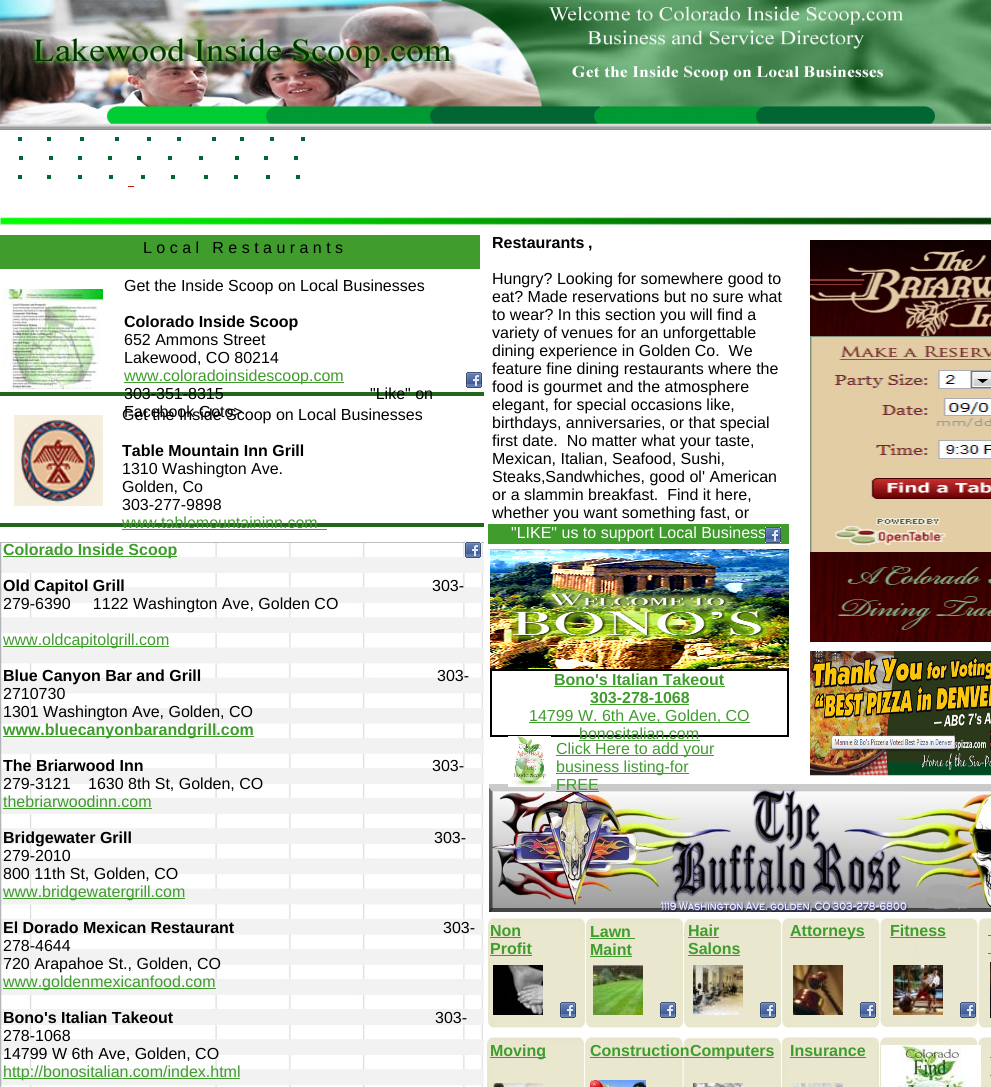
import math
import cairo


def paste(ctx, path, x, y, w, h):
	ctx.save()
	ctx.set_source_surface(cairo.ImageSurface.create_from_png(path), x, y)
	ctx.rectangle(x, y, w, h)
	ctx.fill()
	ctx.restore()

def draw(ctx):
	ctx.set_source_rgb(1, 1, 1)
	ctx.paint()
	paste(ctx, 'media/1.png', 0, 0, 991, 226)
	ctx.set_source_rgb(0, 0.4, 0.2)
	ctx.rectangle(18, 137, 4, 4)
	ctx.rectangle(47, 137, 4, 4)
	ctx.rectangle(80, 137, 4, 4)
	ctx.rectangle(115, 137, 4, 4)
	ctx.rectangle(147, 137, 4, 4)
	ctx.rectangle(177, 137, 4, 4)
	ctx.rectangle(212, 137, 4, 4)
	ctx.rectangle(240, 137, 4, 4)
	ctx.rectangle(270, 137, 4, 4)
	ctx.rectangle(301, 137, 4, 4)
	ctx.rectangle(19, 156, 4, 4)
	ctx.rectangle(49, 156, 4, 4)
	ctx.rectangle(78, 156, 4, 4)
	ctx.rectangle(108, 156, 4, 4)
	ctx.rectangle(137, 156, 4, 4)
	ctx.rectangle(168, 156, 4, 4)
	ctx.rectangle(199, 156, 4, 4)
	ctx.rectangle(235, 156, 4, 4)
	ctx.rectangle(264, 156, 4, 4)
	ctx.rectangle(294, 156, 4, 4)
	ctx.rectangle(18, 175, 4, 4)
	ctx.rectangle(47, 175, 4, 4)
	ctx.rectangle(78, 175, 4, 4)
	ctx.rectangle(109, 175, 4, 4)
	ctx.fill()
	ctx.set_source_rgb(0.725, 0.094, 0.024)
	ctx.rectangle(128, 186, 6, 1)
	ctx.fill()
	ctx.set_source_rgb(0, 0.4, 0.2)
	ctx.rectangle(141, 175, 4, 4)
	ctx.rectangle(171, 175, 4, 4)
	ctx.rectangle(204, 175, 4, 4)
	ctx.rectangle(234, 175, 4, 4)
	ctx.rectangle(266, 175, 4, 4)
	ctx.rectangle(296, 175, 4, 4)
	ctx.fill()
	ctx.set_source_rgb(0.247, 0.612, 0.176)
	ctx.rectangle(0, 235, 480, 34)
	ctx.fill()
	ctx.select_font_face('Liberation Sans', cairo.FONT_SLANT_NORMAL, cairo.FONT_WEIGHT_BOLD)
	ctx.set_font_size(16)
	ctx.set_source_rgb(0, 0, 0)
	ctx.move_to(492, 248)
	ctx.show_text('Restaurants')
	ctx.move_to(588, 248)
	ctx.show_text(',')
	ctx.select_font_face('Liberation Sans')
	for x, y, s in [
		(492, 284, 'Hungry? Looking for somewhere good to'),
		(492, 302, 'eat? Made reservations but no sure what'),
		(492, 320, 'to wear? In this section you will find a'),
		(492, 338, 'variety of venues for an unforgettable'),
		(492, 356, 'dining experience in Golden Co.  We'),
		(492, 374, 'feature fine dining restaurants where the'),
		(492, 392, 'food is gourmet and the atmosphere'),
		(492, 410, 'elegant, for special occasions like,'),
		(492, 428, 'birthdays, anniversaries, or that special'),
		(492, 446, 'first date.  No matter what your taste,'),
		(492, 464, 'Mexican, Italian, Seafood, Sushi,'),
		(492, 482, 'Steaks,Sandwhiches, good ol\' American'),
		(492, 500, 'or a slammin breakfast.  Find it here,'),
		(492, 518, 'whether you want something fast, or'),
	]:
		ctx.move_to(x, y)
		ctx.show_text(s)
	paste(ctx, 'media/2.png', 810, 240, 181, 96)
	ctx.move_to(143, 253)
	ctx.show_text('L o c a l   R e s t a u r a n t s')
	paste(ctx, 'media/3.png', 3, 289, 100, 100)
	ctx.move_to(124, 291)
	ctx.show_text('Get the Inside Scoop on Local Businesses')
	ctx.select_font_face('Liberation Sans', cairo.FONT_SLANT_NORMAL, cairo.FONT_WEIGHT_BOLD)
	ctx.move_to(124, 327)
	ctx.show_text('Colorado Inside Scoop')
	ctx.select_font_face('Liberation Sans')
	ctx.move_to(124, 345)
	ctx.show_text('652 Ammons Street')
	ctx.move_to(124, 363)
	ctx.show_text('Lakewood, CO 80214')
	ctx.set_source_rgb(0.247, 0.612, 0.176)
	ctx.rectangle(124, 382, 220, 1)
	ctx.fill()
	ctx.move_to(124, 381)
	ctx.show_text('www.coloradoinsidescoop.com')
	ctx.set_source_rgb(0.137, 0.404, 0.11)
	ctx.rectangle(0, 392, 484, 4)
	ctx.fill()
	ctx.set_source_rgb(0, 0, 0)
	for x, y, s in [
		(124, 399, '303-351-8315'),
		(370, 399, '"Like" on'),
		(124, 417, 'Facebook Goto>'),
	]:
		ctx.move_to(x, y)
		ctx.show_text(s)
	paste(ctx, 'media/4.png', 466, 372, 16, 16)
	paste(ctx, 'media/5.png', 810, 336, 181, 216)
	paste(ctx, 'media/6.png', 14, 415, 89, 91)
	ctx.move_to(122, 420)
	ctx.show_text('Get the Inside Scoop on Local Businesses')
	ctx.select_font_face('Liberation Sans', cairo.FONT_SLANT_NORMAL, cairo.FONT_WEIGHT_BOLD)
	ctx.move_to(122, 456)
	ctx.show_text('Table Mountain Inn Grill')
	ctx.select_font_face('Liberation Sans')
	for x, y, s in [
		(122, 474, '1310 Washington Ave.'),
		(122, 492, 'Golden, Co'),
		(122, 510, '303-277-9898'),
	]:
		ctx.move_to(x, y)
		ctx.show_text(s)
	ctx.set_source_rgb(0.137, 0.404, 0.11)
	ctx.rectangle(0, 523, 484, 4)
	ctx.fill()
	ctx.set_source_rgb(0.247, 0.612, 0.176)
	ctx.move_to(122, 528)
	ctx.show_text('www.tablemountaininn.com')
	ctx.rectangle(122, 529, 205, 1)
	ctx.fill()
	ctx.rectangle(488, 524, 301, 20)
	ctx.fill()
	ctx.set_source_rgb(1, 1, 1)
	ctx.move_to(511, 538)
	ctx.show_text('"LIKE" us to support Local Business')
	paste(ctx, 'media/4.png', 765, 527, 16, 16)
	paste(ctx, 'media/7.png', 0, 542, 484, 545)
	paste(ctx, 'media/4.png', 465, 542, 16, 16)
	ctx.set_source_rgb(0.247, 0.612, 0.176)
	ctx.rectangle(3, 556, 174, 1)
	ctx.fill()
	ctx.select_font_face('Liberation Sans', cairo.FONT_SLANT_NORMAL, cairo.FONT_WEIGHT_BOLD)
	ctx.move_to(3, 555)
	ctx.show_text('Colorado Inside Scoop')
	ctx.set_source_rgb(0, 0, 0)
	ctx.move_to(3, 591)
	ctx.show_text('Old Capitol Grill')
	ctx.select_font_face('Liberation Sans')
	ctx.move_to(432, 591)
	ctx.show_text('303-')
	ctx.move_to(3, 609)
	ctx.show_text('279-6390     1122 Washington Ave, Golden CO')
	ctx.set_source_rgb(0.247, 0.612, 0.176)
	ctx.rectangle(3, 646, 166, 1)
	ctx.fill()
	ctx.move_to(3, 645)
	ctx.show_text('www.oldcapitolgrill.com')
	ctx.select_font_face('Liberation Sans', cairo.FONT_SLANT_NORMAL, cairo.FONT_WEIGHT_BOLD)
	ctx.set_source_rgb(0, 0, 0)
	ctx.move_to(3, 681)
	ctx.show_text('Blue Canyon Bar and Grill')
	ctx.select_font_face('Liberation Sans')
	for x, y, s in [
		(437, 681, '303-'),
		(3, 699, '2710730'),
		(3, 717, '1301 Washington Ave, Golden, CO'),
	]:
		ctx.move_to(x, y)
		ctx.show_text(s)
	ctx.set_source_rgb(0.247, 0.612, 0.176)
	ctx.rectangle(3, 736, 251, 1)
	ctx.fill()
	ctx.select_font_face('Liberation Sans', cairo.FONT_SLANT_NORMAL, cairo.FONT_WEIGHT_BOLD)
	ctx.move_to(3, 735)
	ctx.show_text('www.bluecanyonbarandgrill.com')
	ctx.set_source_rgb(0, 0, 0)
	ctx.move_to(3, 771)
	ctx.show_text('The Briarwood Inn')
	ctx.select_font_face('Liberation Sans')
	for x, y, s in [
		(432, 771, '303-'),
		(3, 789, '279-3121'),
		(88, 789, '1630 8th St, Golden, CO'),
	]:
		ctx.move_to(x, y)
		ctx.show_text(s)
	ctx.set_source_rgb(0.247, 0.612, 0.176)
	ctx.move_to(3, 807)
	ctx.show_text('thebriarwoodinn.com')
	ctx.rectangle(3, 808, 149, 1)
	ctx.fill()
	ctx.select_font_face('Liberation Sans', cairo.FONT_SLANT_NORMAL, cairo.FONT_WEIGHT_BOLD)
	ctx.set_source_rgb(0, 0, 0)
	ctx.move_to(3, 843)
	ctx.show_text('Bridgewater Grill')
	ctx.select_font_face('Liberation Sans')
	for x, y, s in [
		(434, 843, '303-'),
		(3, 861, '279-2010'),
		(3, 879, '800 11th St, Golden, CO'),
	]:
		ctx.move_to(x, y)
		ctx.show_text(s)
	ctx.set_source_rgb(0.247, 0.612, 0.176)
	ctx.rectangle(3, 898, 182, 1)
	ctx.fill()
	ctx.move_to(3, 897)
	ctx.show_text('www.bridgewatergrill.com')
	ctx.select_font_face('Liberation Sans', cairo.FONT_SLANT_NORMAL, cairo.FONT_WEIGHT_BOLD)
	ctx.set_source_rgb(0, 0, 0)
	ctx.move_to(3, 933)
	ctx.show_text('El Dorado Mexican Restaurant')
	ctx.select_font_face('Liberation Sans')
	for x, y, s in [
		(443, 933, '303-'),
		(3, 951, '278-4644'),
		(3, 969, '720 Arapahoe St., Golden, CO'),
	]:
		ctx.move_to(x, y)
		ctx.show_text(s)
	ctx.set_source_rgb(0.247, 0.612, 0.176)
	ctx.rectangle(3, 988, 213, 1)
	ctx.fill()
	ctx.move_to(3, 987)
	ctx.show_text('www.goldenmexicanfood.com')
	ctx.select_font_face('Liberation Sans', cairo.FONT_SLANT_NORMAL, cairo.FONT_WEIGHT_BOLD)
	ctx.set_source_rgb(0, 0, 0)
	ctx.move_to(3, 1023)
	ctx.show_text('Bono\'s Italian Takeout')
	ctx.select_font_face('Liberation Sans')
	for x, y, s in [
		(435, 1023, '303-'),
		(3, 1041, '278-1068'),
		(3, 1059, '14799 W 6th Ave, Golden, CO'),
	]:
		ctx.move_to(x, y)
		ctx.show_text(s)
	ctx.set_source_rgb(0.247, 0.612, 0.176)
	ctx.rectangle(3, 1078, 237, 1)
	ctx.fill()
	ctx.move_to(3, 1077)
	ctx.show_text('http://bonositalian.com/index.html')
	paste(ctx, 'media/8.png', 490, 549, 299, 120)
	paste(ctx, 'media/9.png', 810, 552, 181, 90)
	ctx.rectangle(491, 670, 297, 66)
	ctx.set_source_rgb(0, 0, 0)
	ctx.stroke()
	ctx.select_font_face('Liberation Sans', cairo.FONT_SLANT_NORMAL, cairo.FONT_WEIGHT_BOLD)
	ctx.set_source_rgb(0.247, 0.612, 0.176)
	ctx.move_to(554, 685)
	ctx.show_text('Bono\'s Italian Takeout')
	ctx.rectangle(554, 686, 171, 1)
	ctx.fill()
	ctx.move_to(590, 703)
	ctx.show_text('303-278-1068')
	ctx.rectangle(590, 704, 99, 1)
	ctx.fill()
	ctx.rectangle(529, 722, 221, 1)
	ctx.fill()
	ctx.select_font_face('Liberation Sans')
	ctx.move_to(529, 721)
	ctx.show_text('14799 W. 6th Ave, Golden, CO')
	ctx.move_to(579, 739)
	ctx.show_text('bonositalian.com')
	ctx.rectangle(579, 740, 121, 1)
	ctx.fill()
	paste(ctx, 'media/10.png', 810, 651, 181, 125)
	paste(ctx, 'media/12.png', 489, 784, 502, 128)
	paste(ctx, 'media/11.png', 508, 736, 43, 51)
	ctx.rectangle(556, 755, 158, 1)
	ctx.fill()
	ctx.move_to(556, 754)
	ctx.show_text('Click Here to add your')
	ctx.rectangle(556, 773, 133, 1)
	ctx.fill()
	ctx.move_to(556, 772)
	ctx.show_text('business listing-for')
	ctx.move_to(556, 790)
	ctx.show_text('FREE')
	ctx.rectangle(556, 791, 43, 1)
	ctx.fill()
	paste(ctx, 'media/13.png', 488, 918, 503, 110)
	ctx.select_font_face('Liberation Sans', cairo.FONT_SLANT_NORMAL, cairo.FONT_WEIGHT_BOLD)
	ctx.move_to(490, 936)
	ctx.show_text('Non')
	ctx.rectangle(490, 937, 31, 1)
	ctx.fill()
	ctx.move_to(490, 954)
	ctx.show_text('Profit')
	ctx.rectangle(490, 955, 42, 1)
	ctx.fill()
	ctx.move_to(590, 937)
	ctx.show_text('Lawn')
	ctx.rectangle(590, 938, 45, 1)
	ctx.fill()
	ctx.move_to(590, 955)
	ctx.show_text('Maint')
	ctx.rectangle(590, 956, 42, 1)
	ctx.fill()
	ctx.move_to(688, 936)
	ctx.show_text('Hair')
	ctx.rectangle(688, 937, 31, 1)
	ctx.fill()
	ctx.move_to(688, 954)
	ctx.show_text('Salons')
	ctx.rectangle(688, 955, 52, 1)
	ctx.fill()
	ctx.rectangle(790, 937, 75, 1)
	ctx.fill()
	ctx.move_to(790, 936)
	ctx.show_text('Attorneys')
	ctx.move_to(890, 936)
	ctx.show_text('Fitness')
	ctx.rectangle(890, 937, 56, 1)
	ctx.rectangle(988, 935, 3, 1)
	ctx.rectangle(988, 953, 3, 1)
	ctx.fill()
	paste(ctx, 'media/14.png', 493, 965, 50, 50)
	paste(ctx, 'media/4.png', 560, 1002, 16, 16)
	paste(ctx, 'media/15.png', 593, 965, 50, 50)
	paste(ctx, 'media/4.png', 660, 1002, 16, 16)
	paste(ctx, 'media/16.png', 693, 965, 50, 50)
	paste(ctx, 'media/4.png', 760, 1002, 16, 16)
	paste(ctx, 'media/17.png', 793, 965, 50, 50)
	paste(ctx, 'media/4.png', 860, 1002, 16, 16)
	paste(ctx, 'media/18.png', 893, 965, 50, 50)
	paste(ctx, 'media/4.png', 960, 1002, 16, 16)
	paste(ctx, 'media/19.png', 990, 962, 1, 56)
	paste(ctx, 'media/20.png', 487, 1037, 504, 50)
	ctx.rectangle(490, 1057, 56, 1)
	ctx.fill()
	ctx.move_to(490, 1056)
	ctx.show_text('Moving')
	ctx.move_to(590, 1056)
	ctx.show_text('Construction')
	ctx.rectangle(590, 1057, 184, 1)
	ctx.fill()
	ctx.move_to(690, 1056)
	ctx.show_text('Computers')
	ctx.move_to(790, 1056)
	ctx.show_text('Insurance')
	ctx.rectangle(790, 1057, 76, 1)
	ctx.fill()
	paste(ctx, 'media/21.png', 881, 1045, 100, 42)
	ctx.rectangle(990, 1057, 1, 1)
	ctx.fill()
	ctx.rectangle(990, 1075, 1, 1)
	ctx.fill()
	paste(ctx, 'media/22.png', 493, 1083, 50, 4)
	paste(ctx, 'media/23.png', 590, 1080, 56, 7)
	paste(ctx, 'media/24.png', 693, 1083, 50, 4)
	paste(ctx, 'media/25.png', 793, 1083, 50, 4)


surface = cairo.ImageSurface(cairo.FORMAT_RGB24, 991, 1087)
ctx = cairo.Context(surface)
options = cairo.FontOptions()
options.set_hint_metrics(cairo.HINT_METRICS_OFF)
options.set_hint_style(cairo.HINT_STYLE_NONE)
ctx.set_font_options(options)
ctx.set_miter_limit(4)
draw(ctx)
surface.write_to_png('image.png')
